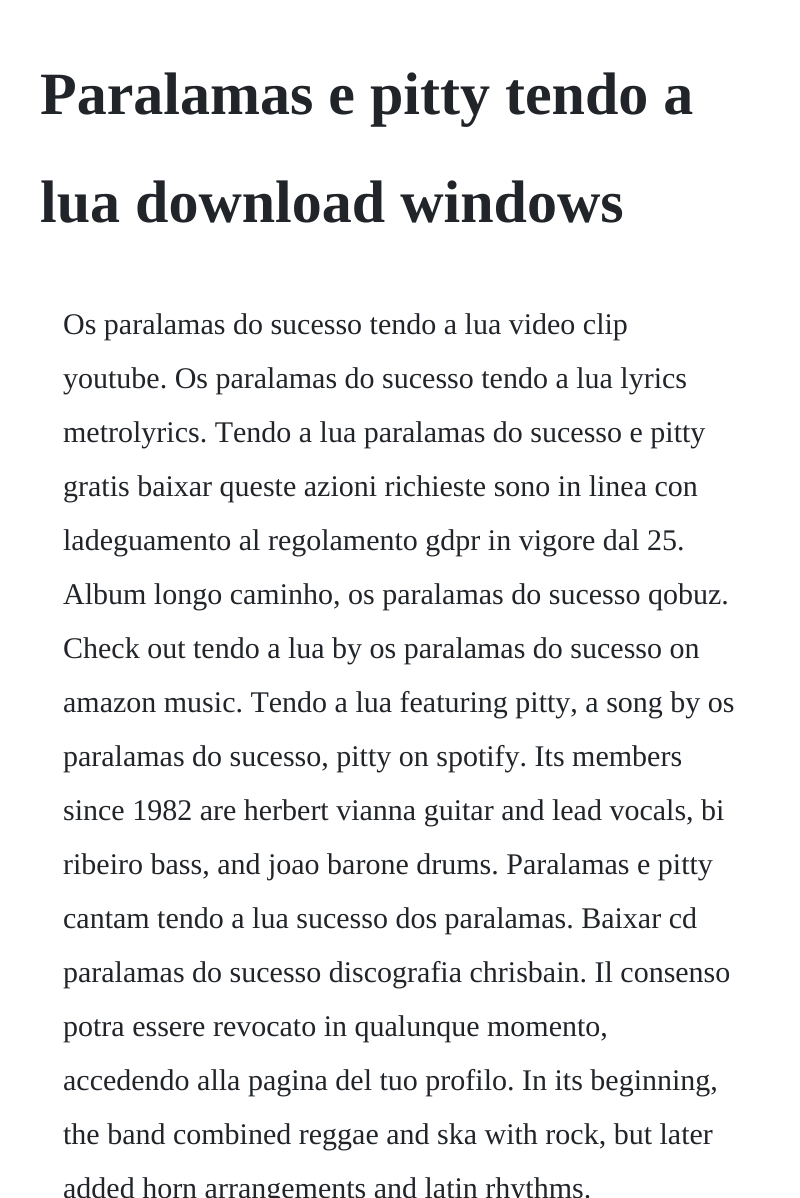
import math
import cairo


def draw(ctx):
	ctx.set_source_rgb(1, 1, 1)
	ctx.paint()
	ctx.select_font_face('Liberation Serif', cairo.FONT_SLANT_NORMAL, cairo.FONT_WEIGHT_BOLD)
	ctx.set_font_size(60)
	ctx.set_source_rgb(0.129, 0.145, 0.161)
	ctx.move_to(40, 114)
	ctx.show_text('Paralamas e pitty tendo a')
	ctx.move_to(40, 222)
	ctx.show_text('lua download windows')
	ctx.select_font_face('Liberation Serif')
	ctx.set_font_size(30)
	for x, y, s in [
		(63, 334, 'Os paralamas do sucesso tendo a lua video clip'),
		(63, 388, 'youtube. Os paralamas do sucesso tendo a lua lyrics'),
		(63, 442, 'metrolyrics. Tendo a lua paralamas do sucesso e pitty'),
		(63, 496, 'gratis baixar queste azioni richieste sono in linea con'),
		(63, 550, 'ladeguamento al regolamento gdpr in vigore dal 25.'),
		(63, 604, 'Album longo caminho, os paralamas do sucesso qobuz.'),
		(63, 658, 'Check out tendo a lua by os paralamas do sucesso on'),
		(63, 712, 'amazon music. Tendo a lua featuring pitty, a song by os'),
		(63, 766, 'paralamas do sucesso, pitty on spotify. Its members'),
		(63, 820, 'since 1982 are herbert vianna guitar and lead vocals, bi'),
		(63, 874, 'ribeiro bass, and joao barone drums. Paralamas e pitty'),
		(63, 928, 'cantam tendo a lua sucesso dos paralamas. Baixar cd'),
		(63, 982, 'paralamas do sucesso discografia chrisbain. Il consenso'),
		(63, 1036, 'potra essere revocato in qualunque momento,'),
		(63, 1090, 'accedendo alla pagina del tuo profilo. In its beginning,'),
		(63, 1144, 'the band combined reggae and ska with rock, but later'),
		(63, 1198, 'added horn arrangements and latin rhythms.'),
	]:
		ctx.move_to(x, y)
		ctx.show_text(s)


surface = cairo.ImageSurface(cairo.FORMAT_RGB24, 800, 1198)
ctx = cairo.Context(surface)
options = cairo.FontOptions()
options.set_hint_metrics(cairo.HINT_METRICS_OFF)
options.set_hint_style(cairo.HINT_STYLE_NONE)
ctx.set_font_options(options)
ctx.set_miter_limit(4)
draw(ctx)
surface.write_to_png('image.png')
